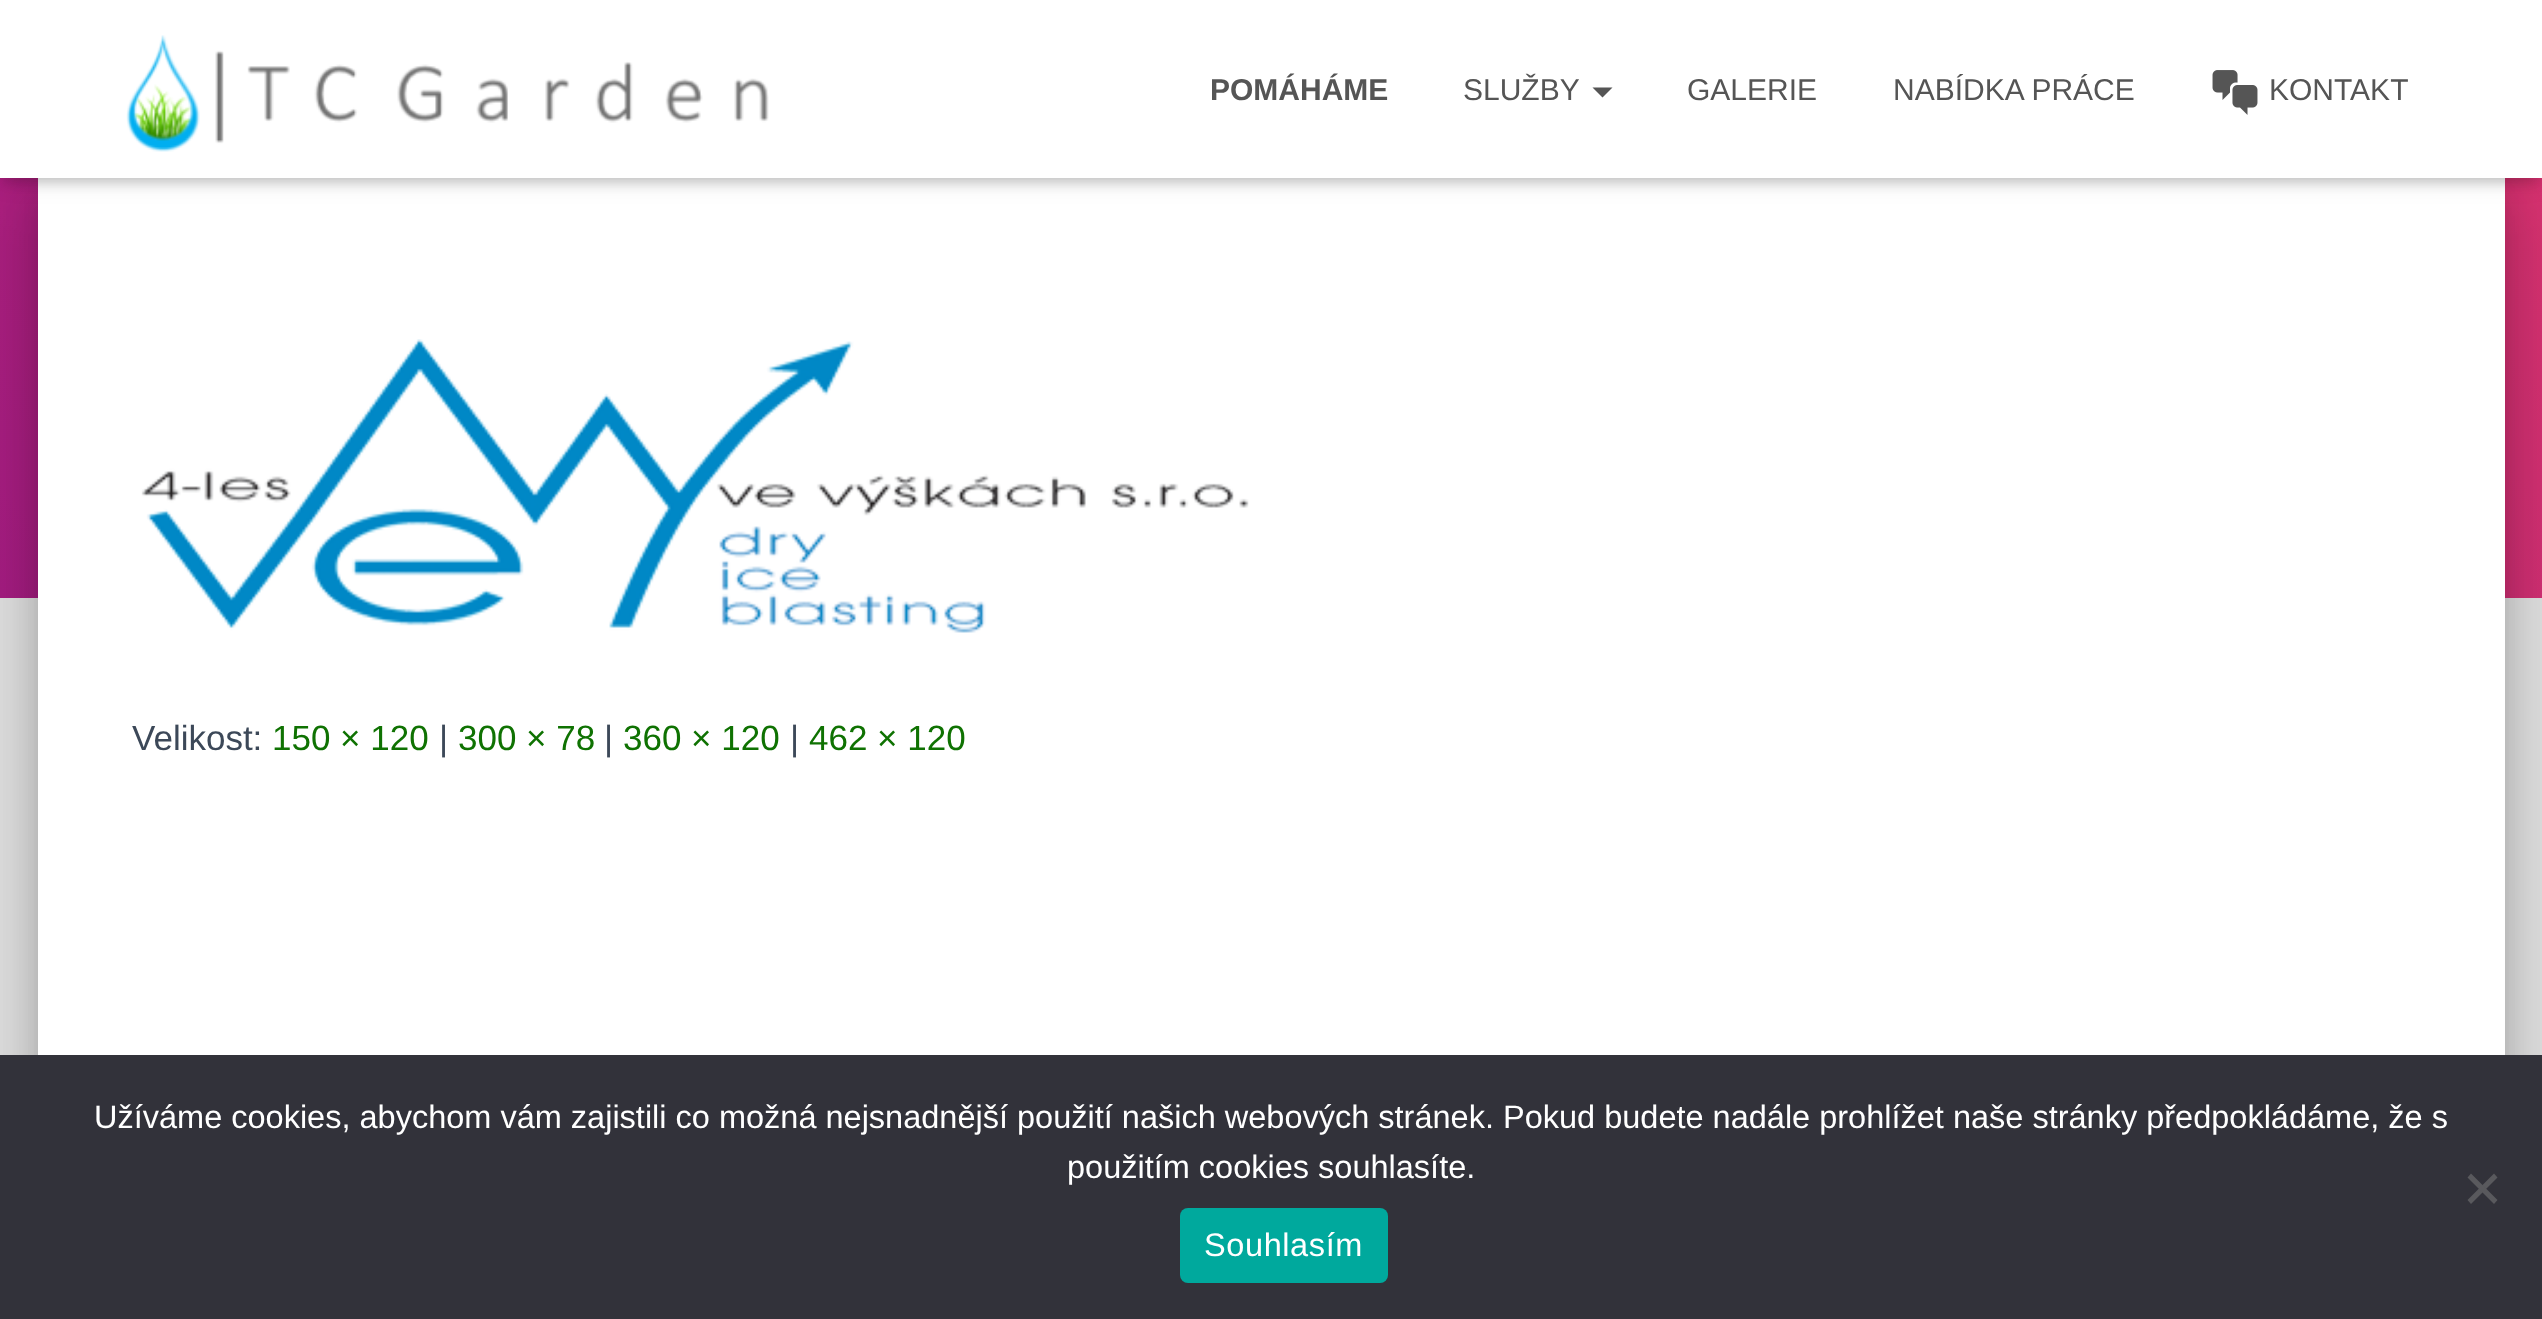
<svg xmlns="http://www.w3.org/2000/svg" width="2542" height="1319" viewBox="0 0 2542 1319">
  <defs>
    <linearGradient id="g1" gradientUnits="userSpaceOnUse" x1="343" y1="940" x2="2200" y2="-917"><stop offset="0" stop-color="rgb(168,29,132)"/><stop offset="1" stop-color="rgb(234,57,111)"/></linearGradient>
  </defs>
  <rect width="100%" height="100%" fill="rgb(229,229,229)"/>
  <rect x="0" y="178" width="2542" height="420" fill="url(#g1)"/>
  <rect x="50" y="193" width="2443" height="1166" rx="2.5" fill="rgba(0,0,0,0.2)" filter="blur(12.5px)"/>
  <rect x="25" y="163" width="2493" height="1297" rx="28" fill="rgba(0,0,0,0.12)" filter="blur(37.5px)"/>
  <rect x="33" y="195" width="2477" height="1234" rx="20" fill="rgba(0,0,0,0.14)" filter="blur(30px)"/>
  <rect x="38" y="178" width="2467" height="877" fill="rgb(255,255,255)"/>
  <rect x="5" y="15" width="2533" height="168" fill="rgba(0,0,0,0.1)" filter="blur(6px)"/>
  <rect x="0" y="3" width="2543" height="177" fill="rgba(0,0,0,0.12)" filter="blur(12.5px)"/>
  <rect x="15" y="18" width="2513" height="147" fill="rgba(0,0,0,0.42)" filter="blur(12.5px)"/>
  <rect x="0" y="0" width="2542" height="178" fill="rgb(255,255,255)"/>
  <image x="126" y="35" width="643" height="117" href="pic1.png"/>
  <text x="1210" y="100" font-family="Liberation Sans" font-size="30" font-weight="bold" fill="rgb(85,85,85)">POMÁHÁME</text>
  <text x="1463" y="100" font-family="Liberation Sans" font-size="30" fill="rgb(85,85,85)">SLUŽBY</text>
  <path d="M1592.5 87.5H1612.5L1602.5 97.5Z" fill="rgb(85,85,85)"/>
  <g font-family="Liberation Sans" font-size="30" fill="rgb(85,85,85)">
    <text x="1687" y="100">GALERIE</text>
    <text x="1893" y="100">NABÍDKA PRÁCE</text>
  </g>
  <image x="2212" y="70" width="46" height="45" href="pic2.png"/>
  <text x="2269" y="100" font-family="Liberation Sans" font-size="30" fill="rgb(85,85,85)">KONTAKT</text>
  <image x="141" y="339" width="1108" height="294" href="pic3.png"/>
  <text x="132" y="750" font-family="Liberation Sans" font-size="35" fill="rgb(60,72,88)">Velikost:</text>
  <text x="272" y="750" font-family="Liberation Sans" font-size="35" fill="rgb(15,114,2)">150 × 120</text>
  <text x="439" y="750" font-family="Liberation Sans" font-size="35" fill="rgb(60,72,88)">|</text>
  <text x="458" y="750" font-family="Liberation Sans" font-size="35" fill="rgb(15,114,2)">300 × 78</text>
  <text x="604" y="750" font-family="Liberation Sans" font-size="35" fill="rgb(60,72,88)">|</text>
  <text x="623" y="750" font-family="Liberation Sans" font-size="35" fill="rgb(15,114,2)">360 × 120</text>
  <text x="790" y="750" font-family="Liberation Sans" font-size="35" fill="rgb(60,72,88)">|</text>
  <text x="809" y="750" font-family="Liberation Sans" font-size="35" fill="rgb(15,114,2)">462 × 120</text>
  <rect x="0" y="1055" width="2542" height="264" fill="rgb(50,50,58)"/>
  <g font-family="Liberation Sans" font-size="32.5" fill="rgb(255,255,255)">
    <text x="94" y="1128">Užíváme cookies, abychom vám zajistili co možná nejsnadnější použití našich webových stránek. Pokud budete nadále prohlížet naše stránky předpokládáme, že s</text>
    <text x="1067" y="1178">použitím cookies souhlasíte.</text>
  </g>
  <path d="M2494 1173.5L2497.5 1177.5L2471 1204L2467.5 1200Z" fill="rgb(89,89,93)"/>
  <path d="M2467.5 1177.5L2471 1173.5L2497.5 1200L2494 1204Z" fill="rgb(89,89,93)"/>
  <rect x="1180" y="1208" width="208" height="75" rx="8" fill="rgb(0,169,157)"/>
  <text x="1204" y="1256" font-family="Liberation Sans" font-size="32.5" letter-spacing="0.6" fill="rgb(255,255,255)">Souhlasím</text>
</svg>
